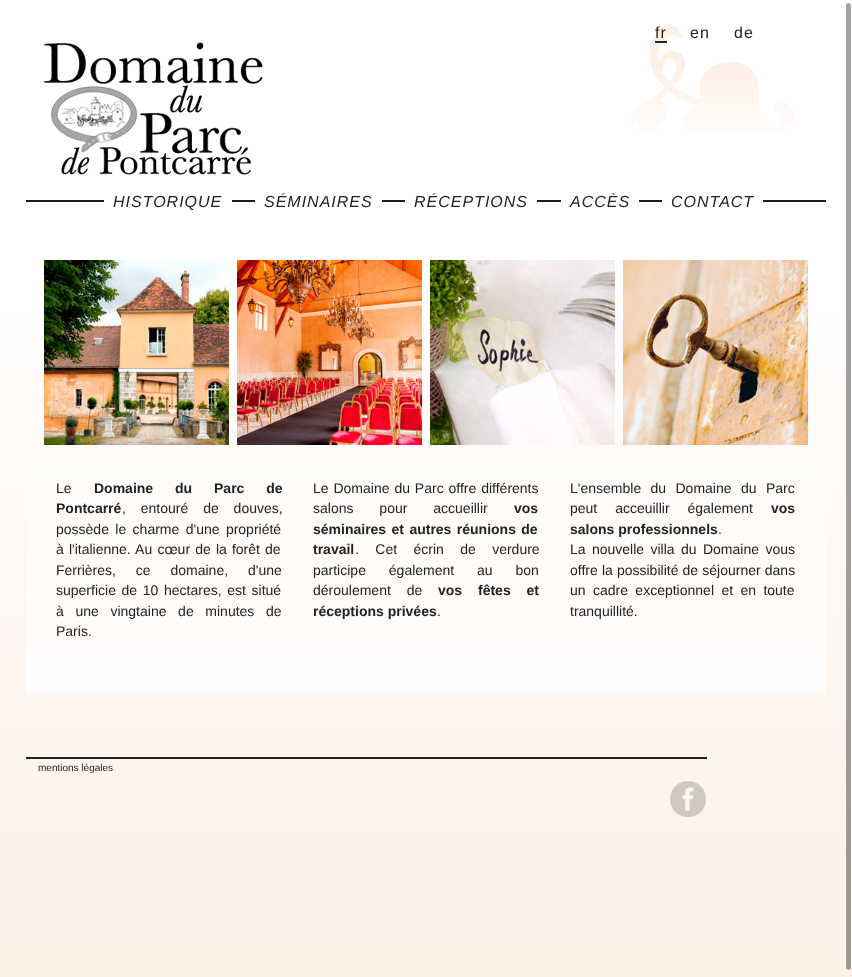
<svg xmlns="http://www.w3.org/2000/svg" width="852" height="977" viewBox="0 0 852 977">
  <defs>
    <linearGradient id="g1" gradientUnits="userSpaceOnUse" x1="426" y1="-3" x2="426" y2="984"><stop offset="0.25" stop-color="rgb(255,255,255)"/><stop offset="1" stop-color="rgb(253,240,229)"/></linearGradient>
    <linearGradient id="g2" gradientUnits="userSpaceOnUse" x1="426" y1="245" x2="426" y2="693"><stop offset="0" stop-color="rgb(255,255,255)" stop-opacity="0.05"/><stop offset="1" stop-color="rgb(255,255,255)" stop-opacity="0.75"/></linearGradient>
  </defs>
  <rect width="100%" height="100%" fill="rgb(255,255,255)"/>
  <rect x="0" y="315" width="852" height="662" fill="url(#g1)"/>
  <image x="631" y="25" width="163" height="105" href="pic1.png"/>
  <text x="655" y="38" font-family="Liberation Sans" font-size="16" letter-spacing="1" fill="rgb(34,34,34)">fr</text>
  <rect x="655" y="41" width="12" height="2" fill="rgb(34,34,34)"/>
  <g font-family="Liberation Sans" font-size="16" letter-spacing="1" fill="rgb(34,34,34)">
    <text x="690" y="38">en</text>
    <text x="734" y="38">de</text>
  </g>
  <image x="44" y="42" width="219" height="133" href="pic2.png"/>
  <rect x="26" y="200" width="800" height="2" fill="rgb(28,28,28)"/>
  <rect x="104" y="200" width="128" height="2" fill="rgb(255,255,255)"/>
  <text x="113" y="207" font-family="Liberation Sans" font-size="16" font-style="italic" letter-spacing="1" fill="rgb(34,34,34)">HISTORIQUE</text>
  <rect x="255" y="200" width="127" height="2" fill="rgb(255,255,255)"/>
  <text x="264" y="207" font-family="Liberation Sans" font-size="16" font-style="italic" letter-spacing="1" fill="rgb(34,34,34)">SÉMINAIRES</text>
  <rect x="405" y="200" width="132" height="2" fill="rgb(255,255,255)"/>
  <text x="414" y="207" font-family="Liberation Sans" font-size="16" font-style="italic" letter-spacing="1" fill="rgb(34,34,34)">RÉCEPTIONS</text>
  <rect x="561" y="200" width="78" height="2" fill="rgb(255,255,255)"/>
  <text x="570" y="207" font-family="Liberation Sans" font-size="16" font-style="italic" letter-spacing="1" fill="rgb(34,34,34)">ACCÈS</text>
  <rect x="662" y="200" width="101" height="2" fill="rgb(255,255,255)"/>
  <text x="671" y="207" font-family="Liberation Sans" font-size="16" font-style="italic" letter-spacing="1" fill="rgb(34,34,34)">CONTACT</text>
  <rect x="26" y="450" width="800" height="243" fill="url(#g2)"/>
  <image x="44" y="260" width="185" height="185" href="pic3.png"/>
  <image x="237" y="260" width="185" height="185" href="pic4.png"/>
  <image x="430" y="260" width="185" height="185" href="pic5.png"/>
  <image x="623" y="260" width="185" height="185" href="pic6.png"/>
  <text x="56" y="493" font-family="Liberation Sans" font-size="14" fill="rgb(34,34,34)">Le</text>
  <g font-family="Liberation Sans" font-size="14" font-weight="bold" fill="rgb(34,34,34)">
    <text x="94" y="493" word-spacing="18">Domaine du Parc de</text>
    <text x="56" y="513">Pontcarré</text>
  </g>
  <g font-family="Liberation Sans" font-size="14" fill="rgb(34,34,34)">
    <text x="122" y="513" word-spacing="11">, entouré de douves,</text>
    <text>
      <tspan x="56" y="534" word-spacing="2.5">possède le charme d'une propriété</tspan>
      <tspan x="56" y="554" word-spacing="1.25">à l'italienne. Au cœur de la forêt de</tspan>
      <tspan x="56" y="575" word-spacing="16">Ferrières, ce domaine, d'une</tspan>
      <tspan x="56" y="595" word-spacing="1.75">superficie de 10 hectares, est situé</tspan>
      <tspan x="56" y="616" word-spacing="7.75">à une vingtaine de minutes de</tspan>
      <tspan x="56" y="636">Paris.</tspan>
    </text>
    <text>
      <tspan x="313" y="493" word-spacing="1">Le Domaine du Parc offre différents</tspan>
      <tspan x="313" y="513" word-spacing="22">salons pour accueillir</tspan>
    </text>
  </g>
  <g font-family="Liberation Sans" font-size="14" font-weight="bold" fill="rgb(34,34,34)">
    <text x="514" y="513">vos</text>
    <text>
      <tspan x="313" y="534" word-spacing="1.5">séminaires et autres réunions de</tspan>
      <tspan x="313" y="554">travail</tspan>
    </text>
  </g>
  <g font-family="Liberation Sans" font-size="14" fill="rgb(34,34,34)">
    <text x="355" y="554" word-spacing="12.5">. Cet écrin de verdure</text>
    <text>
      <tspan x="313" y="575" word-spacing="19">participe également au bon</tspan>
      <tspan x="313" y="595" word-spacing="12">déroulement de</tspan>
    </text>
  </g>
  <g font-family="Liberation Sans" font-size="14" font-weight="bold" fill="rgb(34,34,34)">
    <text x="438" y="595" word-spacing="12">vos fêtes et</text>
    <text x="313" y="616">réceptions privées</text>
  </g>
  <g font-family="Liberation Sans" font-size="14" fill="rgb(34,34,34)">
    <text x="437" y="616">.</text>
    <text>
      <tspan x="570" y="493" word-spacing="5.5">L'ensemble du Domaine du Parc</tspan>
      <tspan x="570" y="513" word-spacing="14">peut acceuillir également</tspan>
    </text>
  </g>
  <g font-family="Liberation Sans" font-size="14" font-weight="bold" fill="rgb(34,34,34)">
    <text x="771" y="513">vos</text>
    <text x="570" y="534">salons professionnels</text>
  </g>
  <g font-family="Liberation Sans" font-size="14" fill="rgb(34,34,34)">
    <text x="718" y="534">.</text>
    <text>
      <tspan x="570" y="554" word-spacing="2.5">La nouvelle villa du Domaine vous</tspan>
      <tspan x="570" y="575" word-spacing="0.25">offre la possibilité de séjourner dans</tspan>
      <tspan x="570" y="595" word-spacing="3.5">un cadre exceptionnel et en toute</tspan>
      <tspan x="570" y="616">tranquillité.</tspan>
    </text>
  </g>
  <rect x="26" y="757" width="681" height="2" fill="rgb(34,34,34)"/>
  <text x="38" y="771" font-family="Liberation Sans" font-size="10" fill="rgb(34,34,34)">mentions légales</text>
  <image x="670" y="781" width="36" height="36" href="pic7.png"/>
  <rect x="846" y="3" width="5" height="967" rx="2.5" fill="rgba(66,66,66,0.5)"/>
  <rect x="845.5" y="2.5" width="6" height="968" rx="3" fill="none" stroke="rgba(255,255,255,0.5)"/>
</svg>
